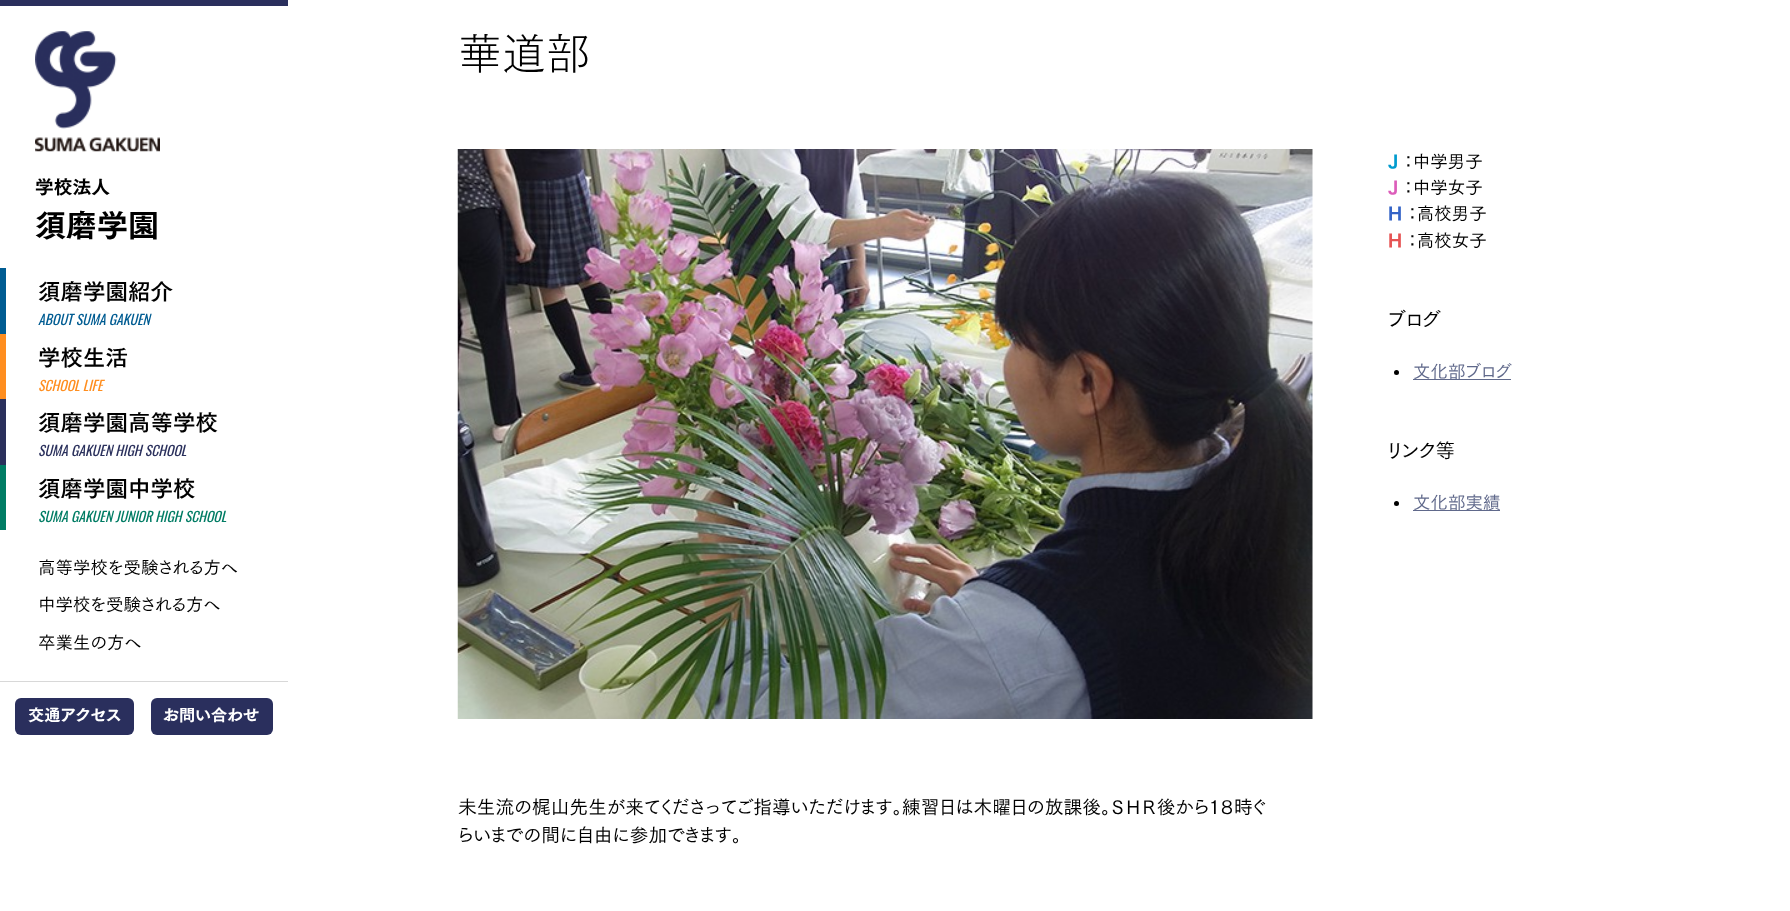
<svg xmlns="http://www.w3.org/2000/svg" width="1790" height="911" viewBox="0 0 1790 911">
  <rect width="100%" height="100%" fill="rgb(255,255,255)"/>
  <rect x="0" y="0" width="288" height="6" fill="rgb(42,47,93)"/>
  <image x="35" y="31" width="125" height="121" href="pic1.png"/>
  <text x="35" y="194" font-family="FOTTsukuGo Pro" font-size="18.75" font-weight="800" fill="rgb(0,0,0)">学校法人</text>
  <text x="35" y="237" font-family="FOTTsukuGo Pro" font-size="31" font-weight="800" fill="rgb(0,0,0)">須磨学園</text>
  <rect x="0" y="268" width="6" height="66" fill="rgb(0,92,146)"/>
  <text x="38" y="300" font-family="FOTTsukuGo Pro" font-size="22.5" font-weight="bold" fill="rgb(0,0,0)">須磨学園紹介</text>
  <text x="38" y="325" font-family="Oswald" font-size="13.75" font-style="italic" fill="rgb(0,92,146)">ABOUT SUMA GAKUEN</text>
  <rect x="0" y="334" width="6" height="65" fill="rgb(255,142,31)"/>
  <text x="38" y="366" font-family="FOTTsukuGo Pro" font-size="22.5" font-weight="bold" fill="rgb(0,0,0)">学校生活</text>
  <text x="38" y="391" font-family="Oswald" font-size="13.75" font-style="italic" fill="rgb(255,142,31)">SCHOOL LIFE</text>
  <rect x="0" y="399" width="6" height="66" fill="rgb(42,48,92)"/>
  <text x="38" y="431" font-family="FOTTsukuGo Pro" font-size="22.5" font-weight="bold" fill="rgb(0,0,0)">須磨学園高等学校</text>
  <text x="38" y="456" font-family="Oswald" font-size="13.75" font-style="italic" fill="rgb(42,48,92)">SUMA GAKUEN HIGH SCHOOL</text>
  <rect x="0" y="465" width="6" height="65" fill="rgb(0,124,100)"/>
  <text x="38" y="497" font-family="FOTTsukuGo Pro" font-size="22.5" font-weight="bold" fill="rgb(0,0,0)">須磨学園中学校</text>
  <text x="38" y="522" font-family="Oswald" font-size="13.75" font-style="italic" fill="rgb(0,124,100)">SUMA GAKUEN JUNIOR HIGH SCHOOL</text>
  <g font-family="'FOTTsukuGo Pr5'" font-size="17.5" font-weight="500" fill="rgb(0,0,0)">
    <text x="38" y="574">高等学校を受験される方へ</text>
    <text x="38" y="611">中学校を受験される方へ</text>
    <text x="38" y="649">卒業生の方へ</text>
  </g>
  <rect x="0" y="681" width="288" height="1" fill="rgb(216,216,216)"/>
  <rect x="15" y="698" width="119" height="37" rx="6" fill="rgb(42,47,93)"/>
  <text x="28" y="721" font-family="FOTTsukuGo Pro" font-size="16.25" font-weight="800" fill="rgb(255,255,255)">交通アクセス</text>
  <rect x="151" y="698" width="122" height="37" rx="6" fill="rgb(42,47,93)"/>
  <text x="163" y="721" font-family="FOTTsukuGo Pro" font-size="16.25" font-weight="800" fill="rgb(255,255,255)">お問い合わせ</text>
  <text x="458" y="70" font-family="'FOTTsukuGo Pr5'" font-size="44" font-weight="300" fill="rgb(0,0,0)">華道部</text>
  <text x="1388" y="168" font-family="FOTTsukuGo Pro" font-size="17.5" font-weight="800" fill="rgb(1,155,206)">J</text>
  <text x="1404" y="168" font-family="'FOTTsukuGo Pr5'" font-size="17.5" font-weight="500" fill="rgb(0,0,0)">：中学男子</text>
  <text x="1388" y="194" font-family="FOTTsukuGo Pro" font-size="17.5" font-weight="800" fill="rgb(220,93,186)">J</text>
  <text x="1404" y="194" font-family="'FOTTsukuGo Pr5'" font-size="17.5" font-weight="500" fill="rgb(0,0,0)">：中学女子</text>
  <text x="1388" y="220" font-family="FOTTsukuGo Pro" font-size="17.5" font-weight="800" fill="rgb(52,100,199)">H</text>
  <text x="1408" y="220" font-family="'FOTTsukuGo Pr5'" font-size="17.5" font-weight="500" fill="rgb(0,0,0)">：高校男子</text>
  <text x="1388" y="247" font-family="FOTTsukuGo Pro" font-size="17.5" font-weight="800" fill="rgb(230,84,84)">H</text>
  <text x="1408" y="247" font-family="'FOTTsukuGo Pr5'" font-size="17.5" font-weight="500" fill="rgb(0,0,0)">：高校女子</text>
  <text x="1388" y="327" font-family="'FOTTsukuGo Pr5'" font-size="20" font-weight="500" fill="rgb(0,0,0)">ブログ</text>
  <circle cx="1396.5" cy="372.5" r="2.5" fill="rgb(0,0,0)"/>
  <rect x="1413" y="379" width="98" height="1" fill="rgb(96,105,139)"/>
  <text x="1413" y="378" font-family="'FOTTsukuGo Pr5'" font-size="17.5" font-weight="500" fill="rgb(96,105,139)">文化部ブログ</text>
  <text x="1388" y="458" font-family="'FOTTsukuGo Pr5'" font-size="20" font-weight="500" fill="rgb(0,0,0)">リンク等</text>
  <circle cx="1396.5" cy="503.5" r="2.5" fill="rgb(0,0,0)"/>
  <rect x="1413" y="510" width="87" height="1" fill="rgb(96,105,139)"/>
  <text x="1413" y="509" font-family="'FOTTsukuGo Pr5'" font-size="17.5" font-weight="500" fill="rgb(96,105,139)">文化部実績</text>
  <image x="457" y="149" width="856" height="570" href="pic2.png"/>
  <g font-family="'FOTTsukuGo Pr5'" font-size="18.75" font-weight="500" fill="rgb(0,0,0)">
    <text>
      <tspan x="458" y="814">未生流の梶山先生が来てくださってご指導いただけます。練習日は木曜日の放課後。ＳＨＲ後から１８時ぐ</tspan>
      <tspan x="458" y="842">らいまでの間に自由に参加できます。</tspan>
    </text>
  </g>
</svg>
